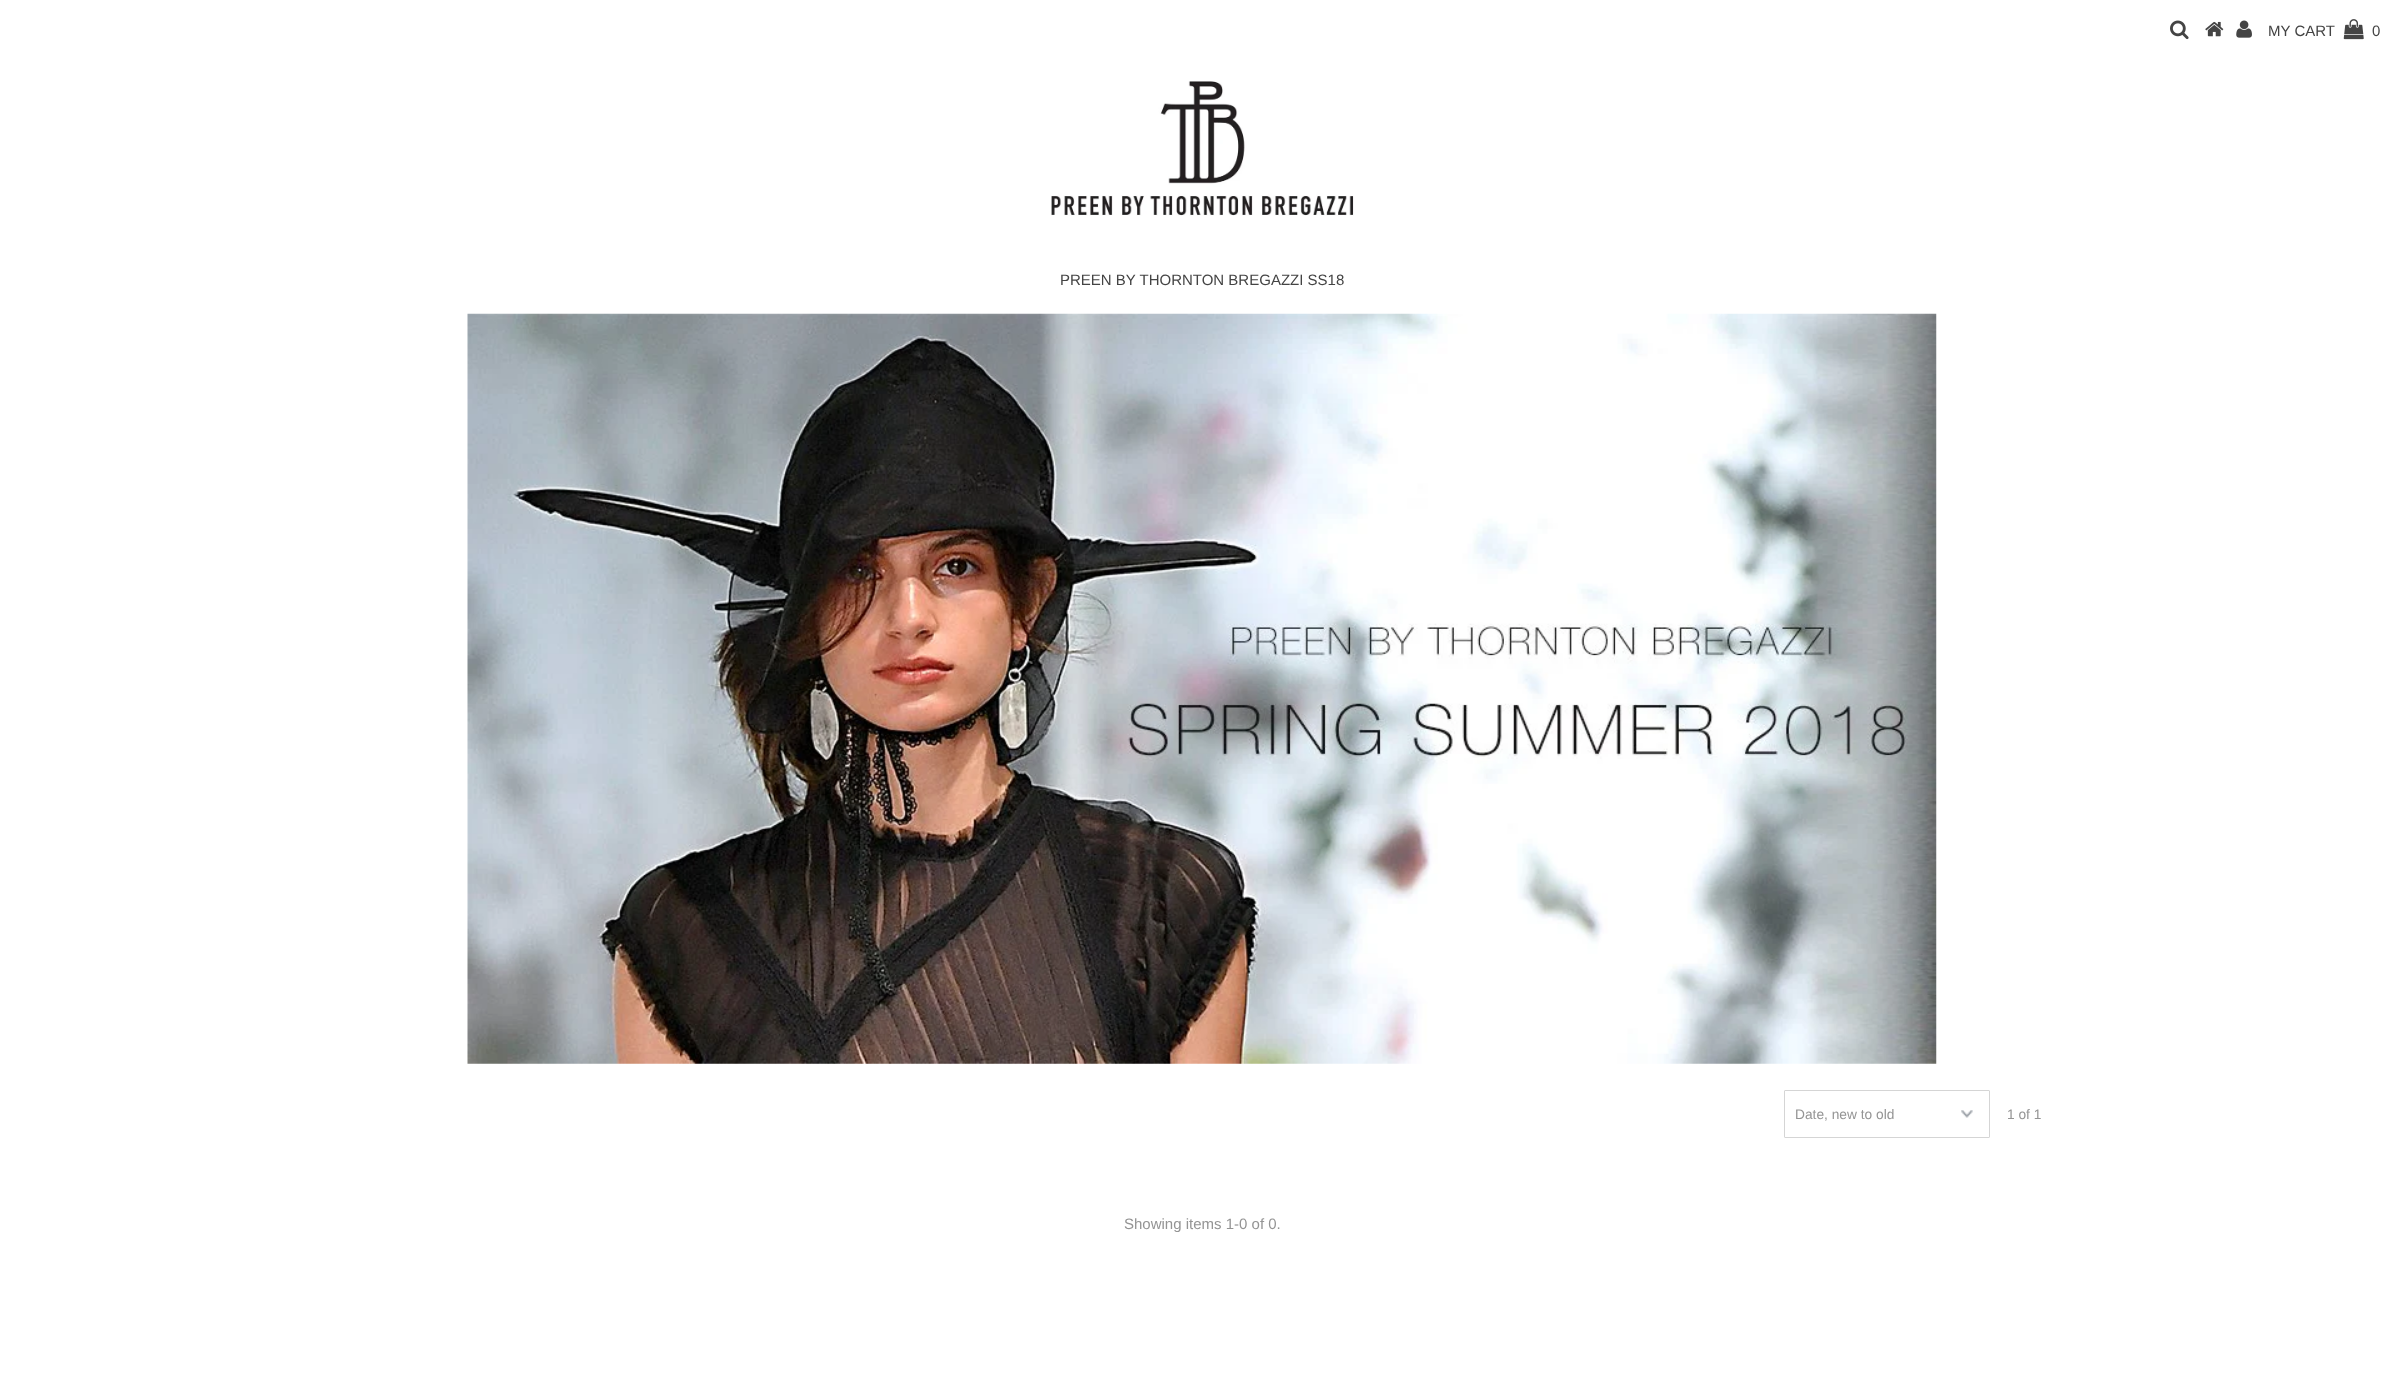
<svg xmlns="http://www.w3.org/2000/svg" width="2404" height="1394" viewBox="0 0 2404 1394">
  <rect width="100%" height="100%" fill="rgb(255,255,255)"/>
  <image x="2170" y="20" width="19" height="20" href="pic1.png"/>
  <image x="2205" y="21" width="19" height="16" href="pic2.png"/>
  <image x="2236" y="20" width="16" height="18" href="pic3.png"/>
  <text x="2268" y="36" font-family="Liberation Sans" font-size="15" fill="rgb(68,68,68)">MY CART</text>
  <image x="2343" y="19" width="21" height="21" href="pic4.png"/>
  <text x="2372" y="36" font-family="Liberation Sans" font-size="15" fill="rgb(68,68,68)">0</text>
  <image x="1051" y="81" width="303" height="135" href="pic5.png"/>
  <text x="1060" y="285" font-family="Liberation Sans" font-size="15" fill="rgb(68,68,68)">PREEN BY THORNTON BREGAZZI SS18</text>
  <image x="467" y="313" width="1470" height="751" href="pic6.png"/>
  <image x="1961" y="1110" width="12" height="8" href="pic7.png"/>
  <rect x="1784.5" y="1090.5" width="205" height="47" rx="0.5" fill="none" stroke="rgb(213,213,213)"/>
  <g font-family="Liberation Sans" font-size="13.75" fill="rgb(148,148,148)">
    <text x="1795" y="1119">Date, new to old</text>
    <text x="2007" y="1119">1 of 1</text>
  </g>
  <text x="1124" y="1229" font-family="Liberation Sans" font-size="15" fill="rgb(148,148,148)">Showing items 1-0 of 0.</text>
</svg>
